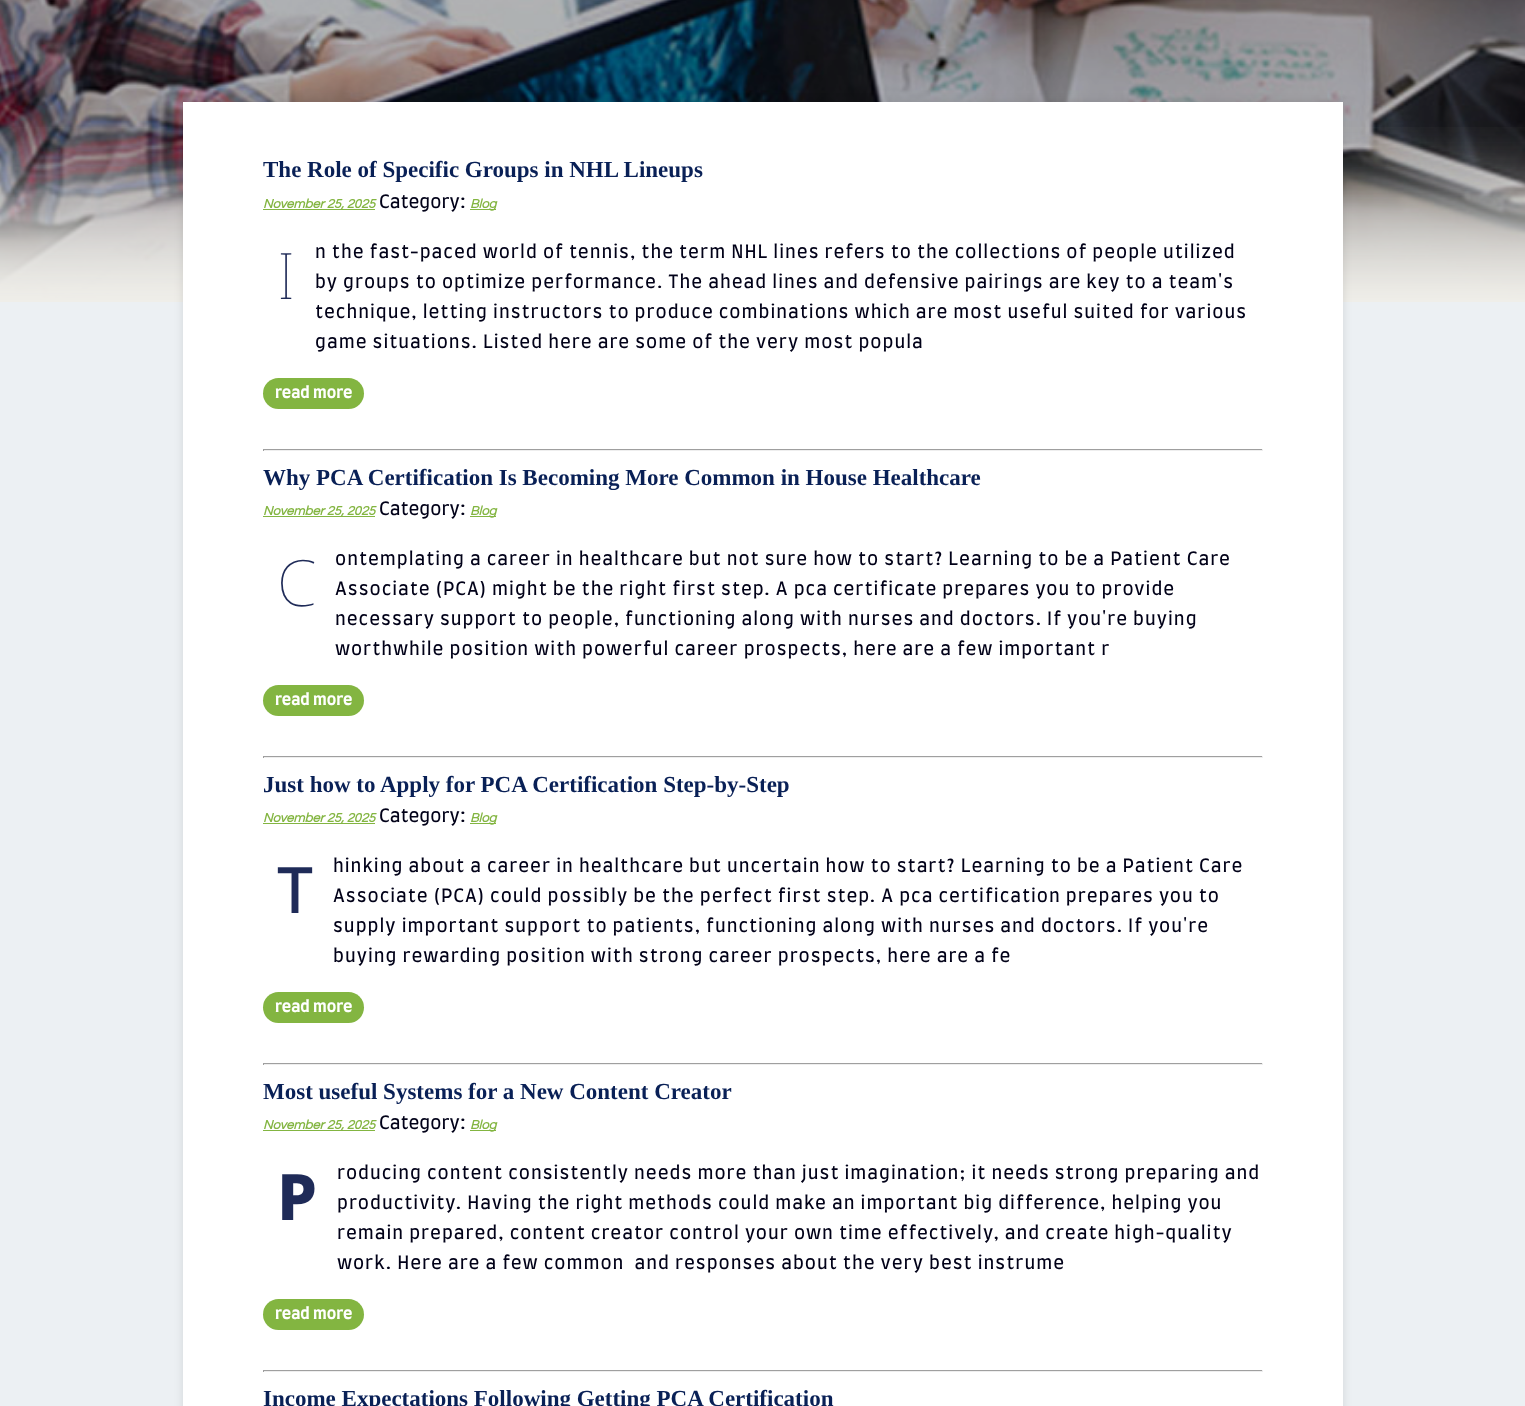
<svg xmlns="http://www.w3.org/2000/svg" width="1525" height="1406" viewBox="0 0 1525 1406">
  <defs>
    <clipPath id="clip1"><rect x="263" y="152" width="1000" height="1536"/></clipPath>
  </defs>
  <rect width="100%" height="100%" fill="rgb(236,240,243)"/>
  <image x="0" y="0" width="1525" height="300" href="pic1.png"/>
  <image x="0" y="127" width="1525" height="175" href="pic2.png"/>
  <rect x="183" y="102" width="1160" height="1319" fill="rgba(0,0,0,0.1)" filter="blur(5px)"/>
  <rect x="183" y="102" width="1160" height="1304" fill="rgb(255,255,255)"/>
  <g clip-path="url(#clip1)">
    <text x="263" y="177" font-family="Liberation Serif" font-size="23" font-weight="bold" fill="rgb(9,32,86)">The Role of Specific Groups in NHL Lineups</text>
  </g>
  <rect x="263" y="209" width="112" height="1" fill="rgb(131,181,65)"/>
  <text x="263" y="208" font-family="Questrial" font-size="13" font-weight="bold" font-style="italic" fill="rgb(131,181,65)">November 25, 2025</text>
  <text x="379" y="208" font-family="Farro" font-size="18" fill="rgb(1,1,24)">Category:</text>
  <rect x="470" y="209" width="26" height="1" fill="rgb(131,181,65)"/>
  <text x="470" y="208" font-family="Questrial" font-size="13" font-weight="bold" font-style="italic" fill="rgb(131,181,65)">Blog</text>
  <text x="277" y="299" font-family="Noto Sans" font-size="64" font-weight="100" letter-spacing="1" fill="rgb(31,43,88)">I</text>
  <g font-family="Farro" font-size="18" letter-spacing="1" fill="rgb(1,1,24)">
    <text>
      <tspan x="315" y="258">n the fast-paced world of tennis, the term NHL lines refers to the collections of people utilized</tspan>
      <tspan x="315" y="288">by groups to optimize performance. The ahead lines and defensive pairings are key to a team's</tspan>
      <tspan x="315" y="318">technique, letting instructors to produce combinations which are most useful suited for various</tspan>
      <tspan x="315" y="348">game situations. Listed here are some of the very most popula</tspan>
    </text>
  </g>
  <rect x="263" y="378" width="101" height="31" rx="15.5" fill="rgb(131,181,65)"/>
  <text x="275" y="398" font-family="Farro" font-size="16" font-weight="bold" fill="rgb(255,255,255)">read more</text>
  <rect x="263" y="449" width="1000" height="1" fill="rgb(159,159,159)"/>
  <rect x="1262" y="449" width="1" height="2" fill="rgb(238,238,238)"/>
  <rect x="263" y="450" width="1000" height="1" fill="rgb(238,238,238)"/>
  <rect x="263" y="449" width="1" height="2" fill="rgb(159,159,159)"/>
  <text x="263" y="485" font-family="Liberation Serif" font-size="23" font-weight="bold" fill="rgb(9,32,86)">Why PCA Certification Is Becoming More Common in House Healthcare</text>
  <rect x="263" y="516" width="112" height="1" fill="rgb(131,181,65)"/>
  <text x="263" y="515" font-family="Questrial" font-size="13" font-weight="bold" font-style="italic" fill="rgb(131,181,65)">November 25, 2025</text>
  <text x="379" y="515" font-family="Farro" font-size="18" fill="rgb(1,1,24)">Category:</text>
  <rect x="470" y="516" width="26" height="1" fill="rgb(131,181,65)"/>
  <text x="470" y="515" font-family="Questrial" font-size="13" font-weight="bold" font-style="italic" fill="rgb(131,181,65)">Blog</text>
  <text x="277" y="606" font-family="Noto Sans" font-size="64" font-weight="100" letter-spacing="1" fill="rgb(31,43,88)">C</text>
  <g font-family="Farro" font-size="18" letter-spacing="1" fill="rgb(1,1,24)">
    <text>
      <tspan x="335" y="565">ontemplating a career in healthcare but not sure how to start? Learning to be a Patient Care</tspan>
      <tspan x="335" y="595">Associate (PCA) might be the right first step. A pca certificate prepares you to provide</tspan>
      <tspan x="335" y="625">necessary support to people, functioning along with nurses and doctors. If you're buying</tspan>
      <tspan x="335" y="655">worthwhile position with powerful career prospects, here are a few important r</tspan>
    </text>
  </g>
  <rect x="263" y="685" width="101" height="31" rx="15.5" fill="rgb(131,181,65)"/>
  <text x="275" y="705" font-family="Farro" font-size="16" font-weight="bold" fill="rgb(255,255,255)">read more</text>
  <rect x="263" y="756" width="1000" height="1" fill="rgb(159,159,159)"/>
  <rect x="1262" y="756" width="1" height="2" fill="rgb(238,238,238)"/>
  <rect x="263" y="757" width="1000" height="1" fill="rgb(238,238,238)"/>
  <rect x="263" y="756" width="1" height="2" fill="rgb(159,159,159)"/>
  <text x="263" y="792" font-family="Liberation Serif" font-size="23" font-weight="bold" fill="rgb(9,32,86)">Just how to Apply for PCA Certification Step-by-Step</text>
  <rect x="263" y="823" width="112" height="1" fill="rgb(131,181,65)"/>
  <text x="263" y="822" font-family="Questrial" font-size="13" font-weight="bold" font-style="italic" fill="rgb(131,181,65)">November 25, 2025</text>
  <text x="379" y="822" font-family="Farro" font-size="18" fill="rgb(1,1,24)">Category:</text>
  <rect x="470" y="823" width="26" height="1" fill="rgb(131,181,65)"/>
  <text x="470" y="822" font-family="Questrial" font-size="13" font-weight="bold" font-style="italic" fill="rgb(131,181,65)">Blog</text>
  <text x="277" y="913" font-family="Noto Sans" font-size="64" font-weight="500" letter-spacing="1" fill="rgb(31,43,88)">T</text>
  <g font-family="Farro" font-size="18" letter-spacing="1" fill="rgb(1,1,24)">
    <text>
      <tspan x="333" y="872">hinking about a career in healthcare but uncertain how to start? Learning to be a Patient Care</tspan>
      <tspan x="333" y="902">Associate (PCA) could possibly be the perfect first step. A pca certification prepares you to</tspan>
      <tspan x="333" y="932">supply important support to patients, functioning along with nurses and doctors. If you're</tspan>
      <tspan x="333" y="962">buying rewarding position with strong career prospects, here are a fe</tspan>
    </text>
  </g>
  <rect x="263" y="992" width="101" height="31" rx="15.5" fill="rgb(131,181,65)"/>
  <text x="275" y="1012" font-family="Farro" font-size="16" font-weight="bold" fill="rgb(255,255,255)">read more</text>
  <rect x="263" y="1063" width="1000" height="1" fill="rgb(159,159,159)"/>
  <rect x="1262" y="1063" width="1" height="2" fill="rgb(238,238,238)"/>
  <rect x="263" y="1064" width="1000" height="1" fill="rgb(238,238,238)"/>
  <rect x="263" y="1063" width="1" height="2" fill="rgb(159,159,159)"/>
  <text x="263" y="1099" font-family="Liberation Serif" font-size="23" font-weight="bold" fill="rgb(9,32,86)">Most useful Systems for a New Content Creator</text>
  <rect x="263" y="1130" width="112" height="1" fill="rgb(131,181,65)"/>
  <text x="263" y="1129" font-family="Questrial" font-size="13" font-weight="bold" font-style="italic" fill="rgb(131,181,65)">November 25, 2025</text>
  <text x="379" y="1129" font-family="Farro" font-size="18" fill="rgb(1,1,24)">Category:</text>
  <rect x="470" y="1130" width="26" height="1" fill="rgb(131,181,65)"/>
  <text x="470" y="1129" font-family="Questrial" font-size="13" font-weight="bold" font-style="italic" fill="rgb(131,181,65)">Blog</text>
  <text x="277" y="1220" font-family="Noto Sans" font-size="64" font-weight="800" letter-spacing="1" fill="rgb(31,43,88)">P</text>
  <g font-family="Farro" font-size="18" letter-spacing="1" fill="rgb(1,1,24)">
    <text xml:space="preserve"><tspan x="337" y="1179">roducing content consistently needs more than just imagination; it needs strong preparing and</tspan><tspan x="337" y="1209">productivity. Having the right methods could make an important big difference, helping you</tspan><tspan x="337" y="1239">remain prepared, content creator control your own time effectively, and create high-quality</tspan><tspan x="337" y="1269">work. Here are a few common  and responses about the very best instrume</tspan></text>
  </g>
  <rect x="263" y="1299" width="101" height="31" rx="15.5" fill="rgb(131,181,65)"/>
  <text x="275" y="1319" font-family="Farro" font-size="16" font-weight="bold" fill="rgb(255,255,255)">read more</text>
  <rect x="263" y="1370" width="1000" height="1" fill="rgb(159,159,159)"/>
  <rect x="1262" y="1370" width="1" height="2" fill="rgb(238,238,238)"/>
  <rect x="263" y="1371" width="1000" height="1" fill="rgb(238,238,238)"/>
  <rect x="263" y="1370" width="1" height="2" fill="rgb(159,159,159)"/>
  <text x="263" y="1406" font-family="Liberation Serif" font-size="23" font-weight="bold" fill="rgb(9,32,86)">Income Expectations Following Getting PCA Certification</text>
</svg>
